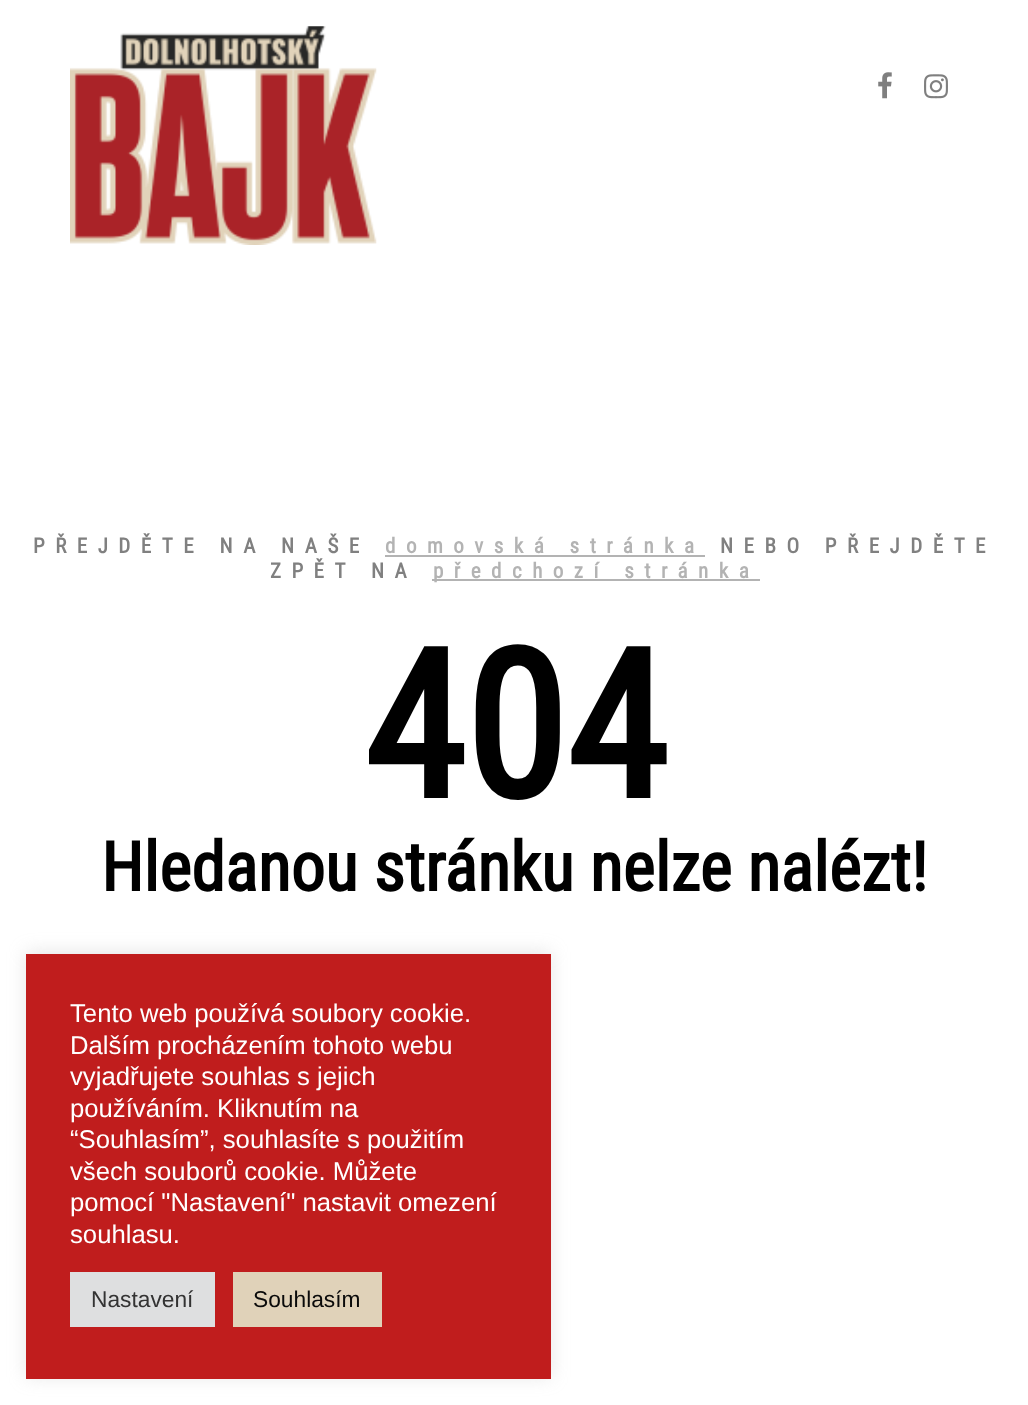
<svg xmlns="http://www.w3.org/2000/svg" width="1028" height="1405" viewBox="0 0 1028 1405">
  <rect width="100%" height="100%" fill="rgb(255,255,255)"/>
  <image x="70" y="26" width="307" height="219" href="pic1.png"/>
  <image x="878" y="72" width="14" height="27" href="pic2.png"/>
  <image x="924" y="74" width="24" height="25" href="pic3.png"/>
  <text x="33" y="553" font-family="Roboto Condensed" font-size="21" font-weight="bold" letter-spacing="10.5" fill="rgb(128,128,128)">PŘEJDĚTE NA NAŠE</text>
  <text x="385" y="553" font-family="Roboto Condensed" font-size="21" font-weight="bold" letter-spacing="10.5" fill="rgb(179,179,179)">domovská stránka</text>
  <rect x="385" y="555" width="320" height="2" fill="rgb(179,179,179)"/>
  <g font-family="Roboto Condensed" font-size="21" font-weight="bold" letter-spacing="10.5" fill="rgb(128,128,128)">
    <text x="720" y="553">NEBO PŘEJDĚTE</text>
    <text x="270" y="578">ZPĚT NA</text>
  </g>
  <rect x="432" y="579" width="328" height="2" fill="rgb(179,179,179)"/>
  <text x="433" y="578" font-family="Roboto Condensed" font-size="21" font-weight="bold" letter-spacing="10.5" fill="rgb(179,179,179)">předchozí stránka</text>
  <text x="363" y="798" font-family="Roboto Condensed" font-size="205" font-weight="bold" fill="rgb(0,0,0)">404</text>
  <text x="101" y="891" font-family="Roboto Condensed" font-size="68.25" font-weight="bold" fill="rgb(0,0,0)">Hledanou stránku nelze nalézt!</text>
  <rect x="26" y="952" width="525" height="425" fill="rgba(172,171,171,0.3)" filter="blur(9px)"/>
  <rect x="26" y="954" width="525" height="425" fill="rgb(192,29,29)"/>
  <g font-family="Liberation Sans" font-size="25.7" fill="rgb(255,255,255)">
    <text>
      <tspan x="70" y="1022">Tento web používá soubory cookie.</tspan>
      <tspan x="70" y="1054">Dalším procházením tohoto webu</tspan>
      <tspan x="70" y="1085">vyjadřujete souhlas s jejich</tspan>
      <tspan x="70" y="1117">používáním. Kliknutím na</tspan>
      <tspan x="70" y="1148">“Souhlasím”, souhlasíte s použitím</tspan>
      <tspan x="70" y="1180">všech souborů cookie. Můžete</tspan>
      <tspan x="70" y="1211">pomocí "Nastavení" nastavit omezení</tspan>
      <tspan x="70" y="1243">souhlasu.</tspan>
    </text>
  </g>
  <rect x="70" y="1272" width="145" height="55" fill="rgb(222,223,224)"/>
  <text x="91" y="1307" font-family="Liberation Sans" font-size="22.75" fill="rgb(51,51,51)">Nastavení</text>
  <rect x="233" y="1272" width="149" height="55" fill="rgb(224,210,185)"/>
  <text x="253" y="1307" font-family="Liberation Sans" font-size="22.75" fill="rgb(10,10,10)">Souhlasím</text>
</svg>
